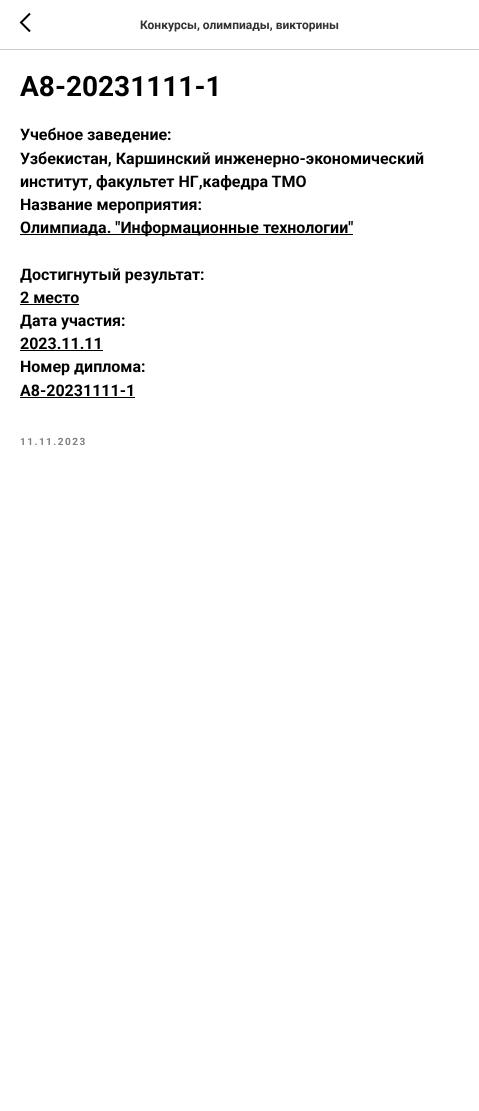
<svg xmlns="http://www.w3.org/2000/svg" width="479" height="1111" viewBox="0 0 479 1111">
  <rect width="100%" height="100%" fill="rgb(255,255,255)"/>
  <rect x="0" y="49" width="479" height="1" fill="rgb(204,204,204)"/>
  <path d="M30 31.5L21 22.5L30 13.5" fill="none" stroke="rgb(0,0,0)" stroke-width="2"/>
  <text x="140" y="29" font-family="Roboto" font-size="12" font-weight="bold" fill="rgb(51,51,51)">Конкурсы, олимпиады, викторины</text>
  <text x="20" y="96" font-family="Roboto" font-size="28" font-weight="bold" fill="rgb(0,0,0)">А8-20231111-1</text>
  <g font-family="Roboto" font-size="16" font-weight="bold" fill="rgb(0,0,0)">
    <text>
      <tspan x="20" y="140">Учебное заведение:</tspan>
      <tspan x="20" y="164">Узбекистан, Каршинский инженерно-экономический</tspan>
      <tspan x="20" y="187">институт, факультет НГ,кафедра ТМО</tspan>
      <tspan x="20" y="210">Название мероприятия:</tspan>
    </text>
  </g>
  <rect x="20" y="234" width="333" height="1" fill="rgb(0,0,0)"/>
  <g font-family="Roboto" font-size="16" font-weight="bold" fill="rgb(0,0,0)">
    <text x="20" y="233">Олимпиада. "Информационные технологии"</text>
    <text>
      <tspan x="20" y="280">Достигнутый результат:</tspan>
      <tspan x="20" y="303">2 место</tspan>
    </text>
  </g>
  <rect x="20" y="304" width="59" height="1" fill="rgb(0,0,0)"/>
  <g font-family="Roboto" font-size="16" font-weight="bold" fill="rgb(0,0,0)">
    <text>
      <tspan x="20" y="326">Дата участия:</tspan>
      <tspan x="20" y="349">2023.11.11</tspan>
    </text>
  </g>
  <rect x="20" y="350" width="83" height="1" fill="rgb(0,0,0)"/>
  <g font-family="Roboto" font-size="16" font-weight="bold" fill="rgb(0,0,0)">
    <text>
      <tspan x="20" y="372">Номер диплома:</tspan>
      <tspan x="20" y="396">А8-20231111-1</tspan>
    </text>
  </g>
  <rect x="20" y="397" width="115" height="1" fill="rgb(0,0,0)"/>
  <text x="20" y="445" font-family="Roboto" font-size="10" font-weight="bold" letter-spacing="1.5" fill="rgb(128,128,128)">11.11.2023</text>
</svg>
